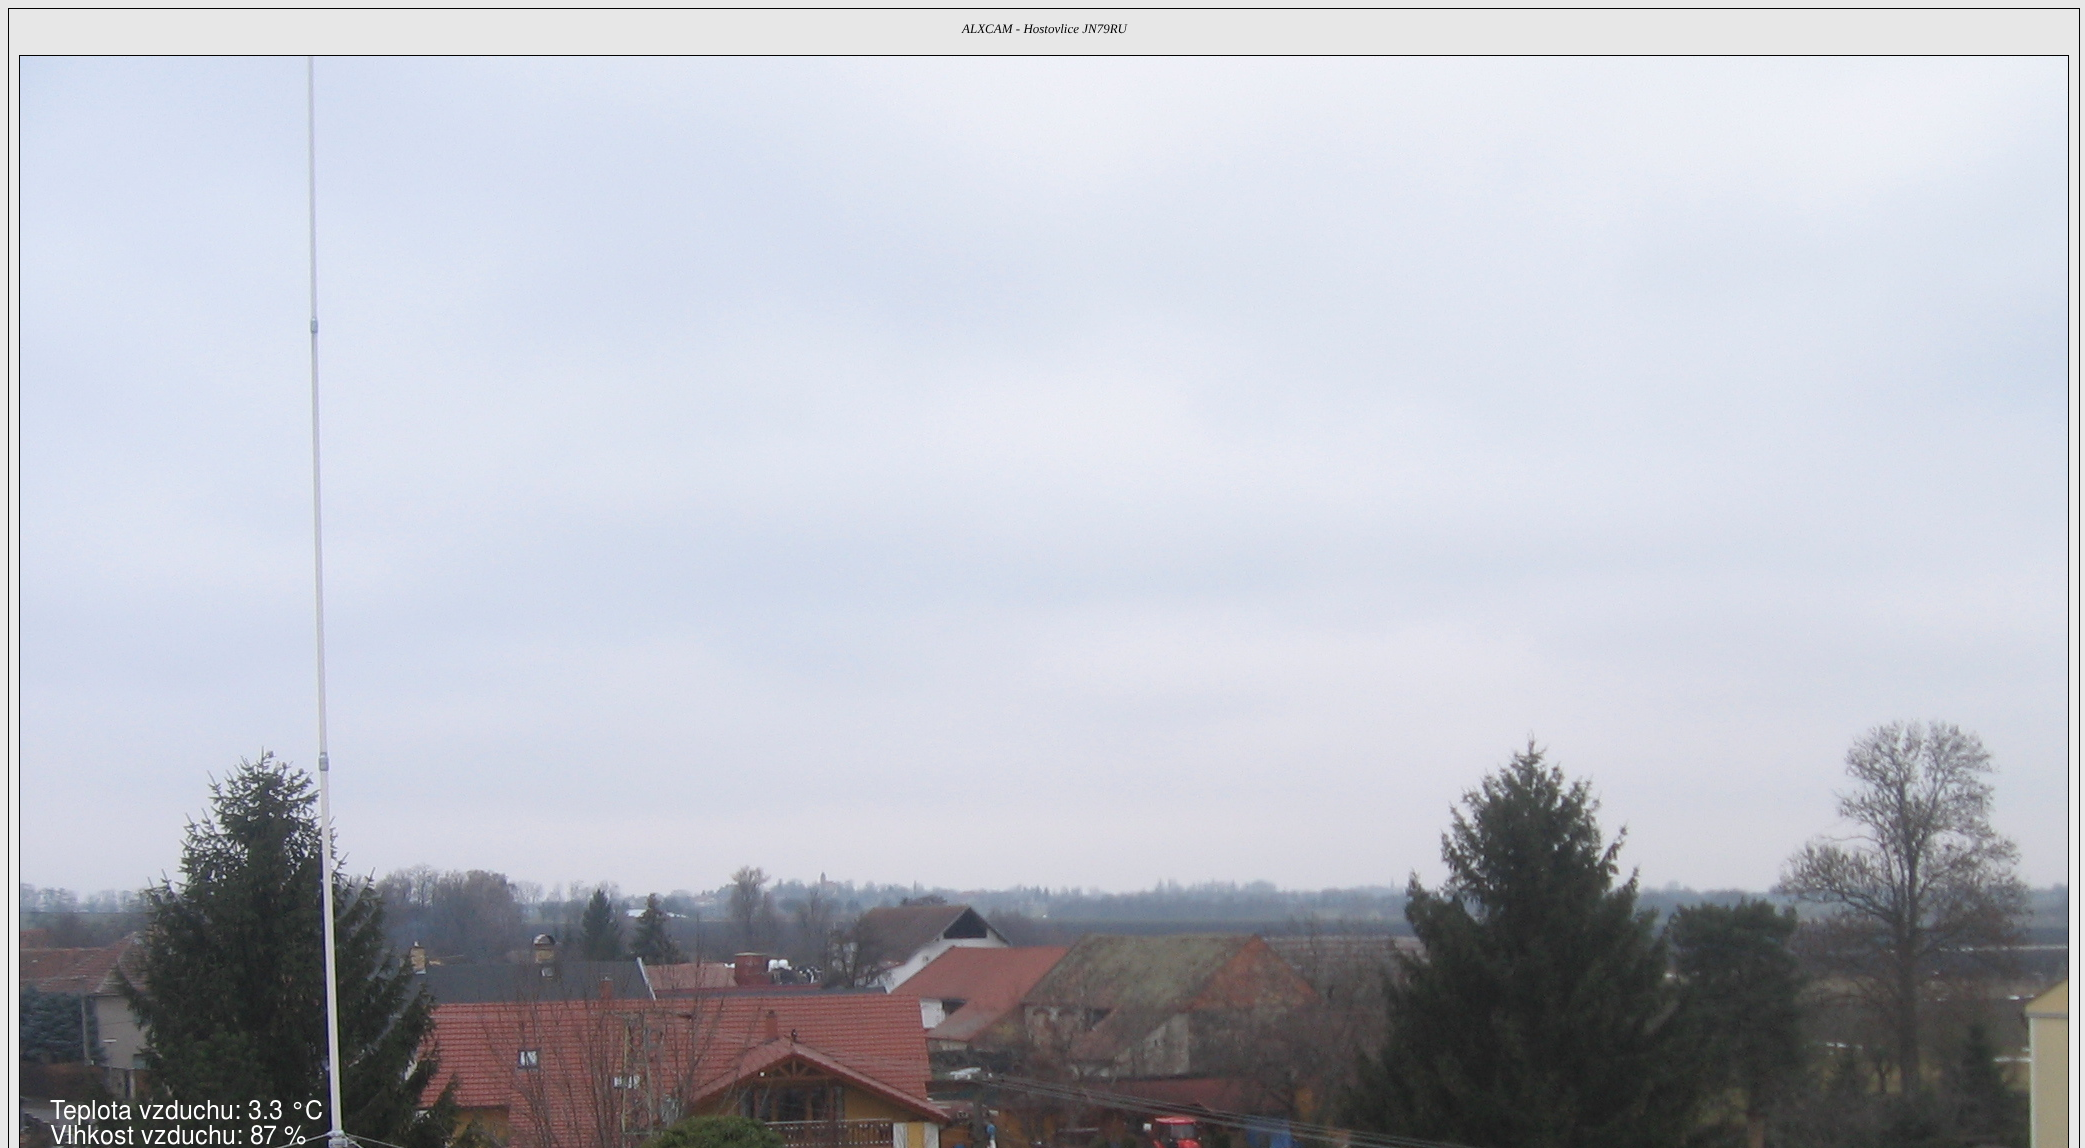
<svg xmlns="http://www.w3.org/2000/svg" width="2085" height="1148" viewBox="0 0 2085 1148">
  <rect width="100%" height="100%" fill="rgb(231,231,231)"/>
  <rect x="8.5" y="8.5" width="2071" height="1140" fill="none" stroke="rgb(0,0,0)"/>
  <text x="962" y="33" font-family="Liberation Serif" font-size="13" font-style="italic" fill="rgb(0,0,0)">ALXCAM - Hostovlice JN79RU</text>
  <rect x="19.5" y="55.5" width="2049" height="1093" fill="none" stroke="rgb(0,0,0)"/>
  <image x="20" y="56" width="2048" height="1092" href="pic1.png"/>
</svg>
